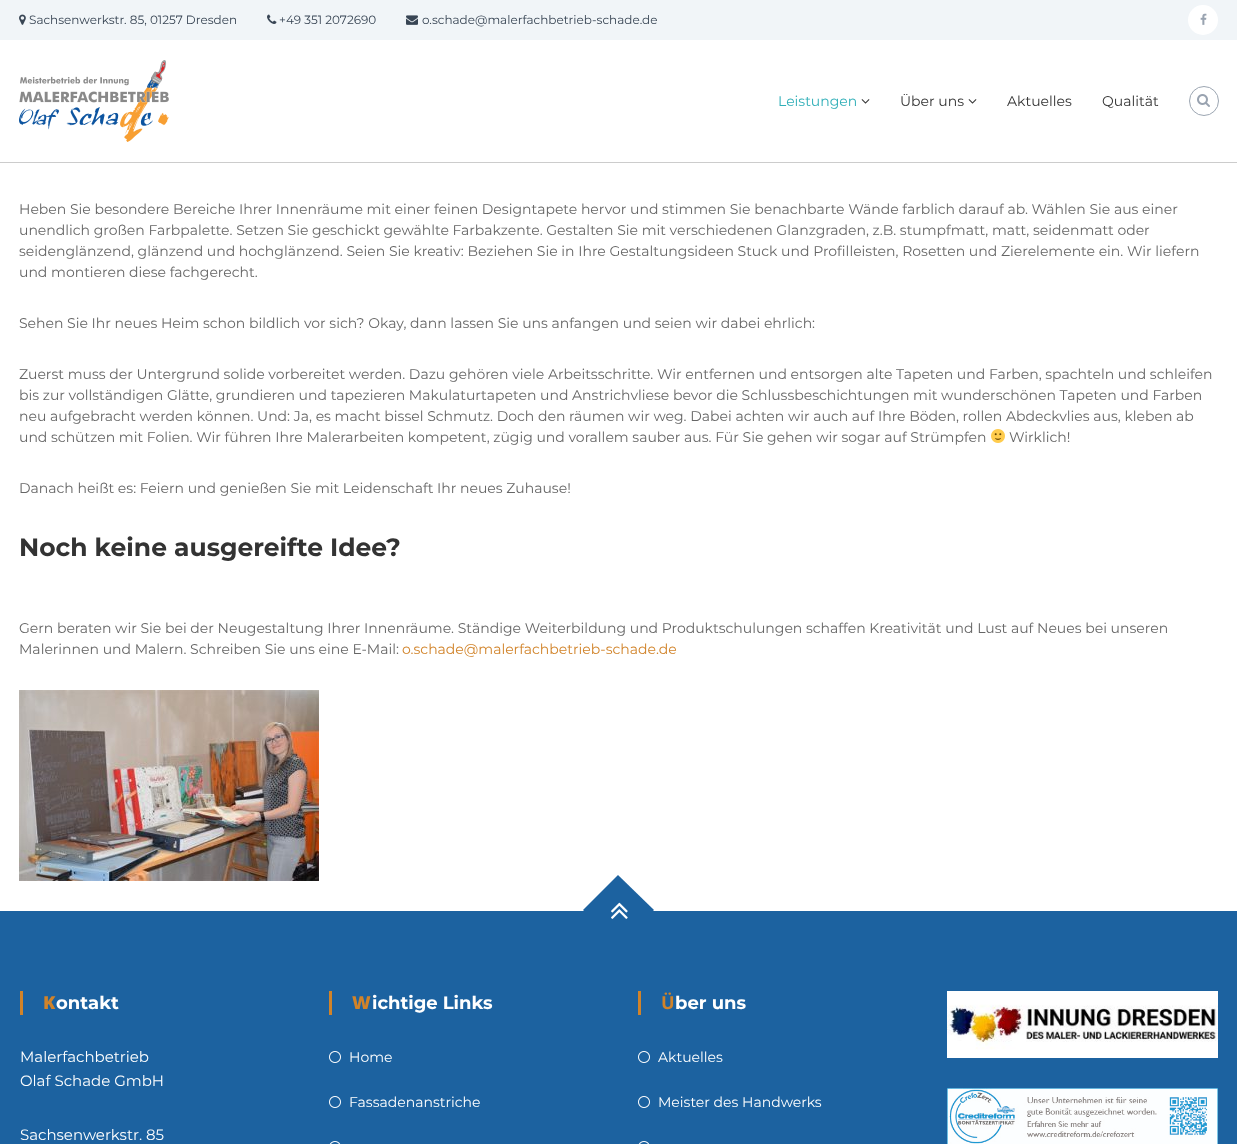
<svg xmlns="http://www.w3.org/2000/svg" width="1237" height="1144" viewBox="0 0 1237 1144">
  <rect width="100%" height="100%" fill="rgb(255,255,255)"/>
  <rect x="0" y="0" width="1237" height="40" fill="rgb(241,245,248)"/>
  <image x="19" y="14" width="7" height="11" href="pic1.png"/>
  <text x="29" y="24" font-family="Montserrat" font-size="12" fill="rgb(56,69,84)">Sachsenwerkstr. 85, 01257 Dresden</text>
  <image x="267" y="14" width="10" height="10" href="pic2.png"/>
  <text x="279" y="24" font-family="Montserrat" font-size="12" fill="rgb(56,69,84)">+49 351 2072690</text>
  <image x="406" y="15" width="12" height="10" href="pic3.png"/>
  <text x="422" y="24" font-family="Montserrat" font-size="12" fill="rgb(56,69,84)">o.schade@malerfachbetrieb-schade.de</text>
  <circle cx="1203" cy="20" r="15" fill="rgb(255,255,255)"/>
  <image x="1200" y="13" width="7" height="12" href="pic4.png"/>
  <rect x="0" y="41" width="1237" height="122" fill="rgba(0,0,0,0.2)" filter="blur(0.5px)"/>
  <rect x="0" y="40" width="1237" height="122" fill="rgb(255,255,255)"/>
  <image x="19" y="60" width="150" height="82" href="pic5.png"/>
  <text x="778" y="106" font-family="Montserrat" font-size="14" fill="rgb(48,175,184)">Leistungen</text>
  <image x="861" y="99" width="9" height="5" href="pic6.png"/>
  <text x="900" y="106" font-family="Montserrat" font-size="14" fill="rgb(51,51,51)">Über uns</text>
  <image x="968" y="99" width="9" height="5" href="pic6.png"/>
  <g font-family="Montserrat" font-size="14" fill="rgb(51,51,51)">
    <text x="1007" y="106">Aktuelles</text>
    <text x="1102" y="106">Qualität</text>
  </g>
  <circle cx="1204" cy="101" r="14.5" fill="none" stroke="rgb(156,166,178)"/>
  <image x="1197" y="94" width="13" height="13" href="pic7.png"/>
  <g font-family="Montserrat" font-size="14" fill="rgb(102,102,102)">
    <text>
      <tspan x="19" y="214">Heben Sie besondere Bereiche Ihrer Innenräume mit einer feinen Designtapete hervor und stimmen Sie benachbarte Wände farblich darauf ab. Wählen Sie aus einer</tspan>
      <tspan x="19" y="235">unendlich großen Farbpalette. Setzen Sie geschickt gewählte Farbakzente. Gestalten Sie mit verschiedenen Glanzgraden, z.B. stumpfmatt, matt, seidenmatt oder</tspan>
      <tspan x="19" y="256">seidenglänzend, glänzend und hochglänzend. Seien Sie kreativ: Beziehen Sie in Ihre Gestaltungsideen Stuck und Profilleisten, Rosetten und Zierelemente ein. Wir liefern</tspan>
      <tspan x="19" y="277">und montieren diese fachgerecht.</tspan>
    </text>
    <text x="19" y="328">Sehen Sie Ihr neues Heim schon bildlich vor sich? Okay, dann lassen Sie uns anfangen und seien wir dabei ehrlich:</text>
    <text>
      <tspan x="19" y="379">Zuerst muss der Untergrund solide vorbereitet werden. Dazu gehören viele Arbeitsschritte. Wir entfernen und entsorgen alte Tapeten und Farben, spachteln und schleifen</tspan>
      <tspan x="19" y="400">bis zur vollständigen Glätte, grundieren und tapezieren Makulaturtapeten und Anstrichvliese bevor die Schlussbeschichtungen mit wunderschönen Tapeten und Farben</tspan>
      <tspan x="19" y="421">neu aufgebracht werden können. Und: Ja, es macht bissel Schmutz. Doch den räumen wir weg. Dabei achten wir auch auf Ihre Böden, rollen Abdeckvlies aus, kleben ab</tspan>
      <tspan x="19" y="442">und schützen mit Folien. Wir führen Ihre Malerarbeiten kompetent, zügig und vorallem sauber aus. Für Sie gehen wir sogar auf Strümpfen</tspan>
    </text>
  </g>
  <image x="991" y="429" width="14" height="14" href="pic8.png"/>
  <g font-family="Montserrat" font-size="14" fill="rgb(102,102,102)">
    <text x="1009" y="442">Wirklich!</text>
    <text x="19" y="493">Danach heißt es: Feiern und genießen Sie mit Leidenschaft Ihr neues Zuhause!</text>
  </g>
  <text x="19" y="556" font-family="Montserrat" font-size="25" font-weight="bold" fill="rgb(51,51,51)">Noch keine ausgereifte Idee?</text>
  <g font-family="Montserrat" font-size="14" fill="rgb(102,102,102)">
    <text>
      <tspan x="19" y="633">Gern beraten wir Sie bei der Neugestaltung Ihrer Innenräume. Ständige Weiterbildung und Produktschulungen schaffen Kreativität und Lust auf Neues bei unseren</tspan>
      <tspan x="19" y="654">Malerinnen und Malern. Schreiben Sie uns eine E-Mail:</tspan>
    </text>
  </g>
  <text x="402" y="654" font-family="Montserrat" font-size="14" fill="rgb(209,131,41)">o.schade@malerfachbetrieb-schade.de</text>
  <image x="19" y="690" width="300" height="191" href="pic9.png"/>
  <rect x="0" y="911" width="1237" height="233" fill="rgb(28,98,160)"/>
  <path d="M618 875L654 910L618 946L583 910Z" fill="rgb(28,98,160)"/>
  <image x="611" y="902" width="17" height="17" href="pic10.png"/>
  <rect x="20" y="991" width="3" height="24" fill="rgb(209,131,41)"/>
  <text x="43" y="1009" font-family="Noto Sans" font-size="18" font-weight="900" fill="rgb(209,131,41)">K</text>
  <text x="56" y="1009" font-family="Montserrat" font-size="18" font-weight="bold" fill="rgb(255,255,255)">ontakt</text>
  <g font-family="Montserrat" font-size="15" fill="rgb(255,255,255)">
    <text>
      <tspan x="20" y="1062">Malerfachbetrieb</tspan>
      <tspan x="20" y="1086">Olaf Schade GmbH</tspan>
    </text>
    <text x="20" y="1140">Sachsenwerkstr. 85</text>
  </g>
  <rect x="329" y="991" width="3" height="24" fill="rgb(209,131,41)"/>
  <text x="352" y="1009" font-family="Noto Sans" font-size="18" font-weight="900" fill="rgb(209,131,41)">W</text>
  <text x="372" y="1009" font-family="Montserrat" font-size="18" font-weight="bold" fill="rgb(255,255,255)">ichtige Links</text>
  <image x="329" y="1051" width="12" height="12" href="pic11.png"/>
  <text x="349" y="1062" font-family="Montserrat" font-size="14" fill="rgb(255,255,255)">Home</text>
  <image x="329" y="1096" width="12" height="12" href="pic11.png"/>
  <text x="349" y="1107" font-family="Montserrat" font-size="14" fill="rgb(255,255,255)">Fassadenanstriche</text>
  <image x="329" y="1141" width="12" height="3" href="pic12.png"/>
  <rect x="638" y="991" width="3" height="24" fill="rgb(209,131,41)"/>
  <text x="661" y="1009" font-family="Noto Sans" font-size="18" font-weight="bold" fill="rgb(209,131,41)">Ü</text>
  <text x="675" y="1009" font-family="Montserrat" font-size="18" font-weight="bold" fill="rgb(255,255,255)">ber uns</text>
  <image x="638" y="1051" width="12" height="12" href="pic11.png"/>
  <text x="658" y="1062" font-family="Montserrat" font-size="14" fill="rgb(255,255,255)">Aktuelles</text>
  <image x="638" y="1096" width="12" height="12" href="pic11.png"/>
  <text x="658" y="1107" font-family="Montserrat" font-size="14" fill="rgb(255,255,255)">Meister des Handwerks</text>
  <image x="638" y="1141" width="12" height="3" href="pic12.png"/>
  <image x="947" y="991" width="271" height="67" href="pic13.png"/>
  <image x="947" y="1088" width="271" height="56" href="pic14.png"/>
</svg>
